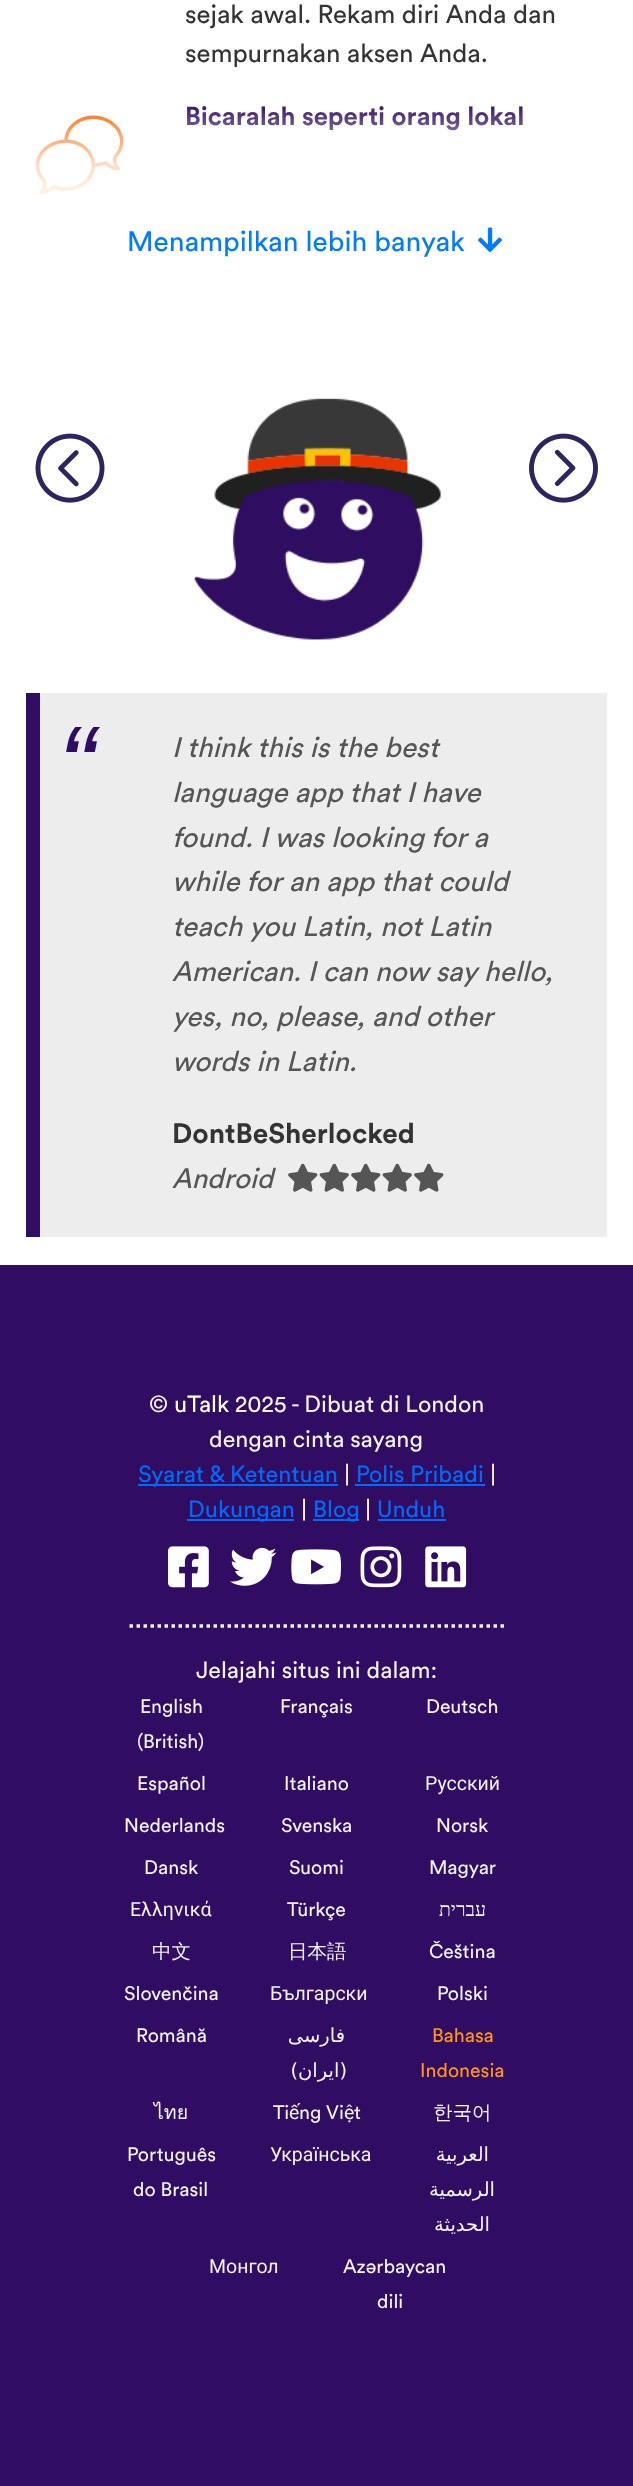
<svg xmlns="http://www.w3.org/2000/svg" width="633" height="2486" viewBox="0 0 633 2486">
  <defs>
    <linearGradient id="g1" gradientUnits="userSpaceOnUse" x1="317" y1="291" x2="317" y2="102"><stop offset="0" stop-color="rgb(255,255,255)"/><stop offset="0.43" stop-color="rgb(255,255,255)"/><stop offset="0.68" stop-color="rgb(255,255,255)" stop-opacity="0.75"/><stop offset="1" stop-color="rgb(255,255,255)" stop-opacity="0"/></linearGradient>
  </defs>
  <rect width="100%" height="100%" fill="rgb(255,255,255)"/>
  <g font-family="Circular" font-size="25.7" fill="rgb(51,51,51)">
    <text>
      <tspan x="185" y="23">sejak awal. Rekam diri Anda dan</tspan>
      <tspan x="185" y="62">sempurnakan aksen Anda.</tspan>
    </text>
  </g>
  <image x="35" y="115" width="89" height="80" href="pic1.png"/>
  <text x="185" y="125" font-family="Circular" font-size="25.7" font-weight="bold" fill="rgb(48,13,98)">Bicaralah seperti orang lokal</text>
  <rect x="35" y="106" width="487" height="89" fill="url(#g1)"/>
  <text x="127" y="251" font-family="Circular" font-size="28" fill="rgb(0,123,255)">Menampilkan lebih banyak</text>
  <image x="478" y="227" width="24" height="25" href="pic2.png"/>
  <image x="35" y="433" width="70" height="70" href="pic3.png"/>
  <image x="194" y="398" width="247" height="242" href="pic4.png"/>
  <image x="529" y="433" width="69" height="70" href="pic5.png"/>
  <rect x="40" y="693" width="567" height="544" fill="rgb(237,237,237)"/>
  <rect x="26" y="693" width="14" height="544" fill="rgb(48,13,98)"/>
  <text x="58" y="804" font-family="Liberation Sans" font-size="112" font-style="italic" fill="rgb(48,13,98)">“</text>
  <g font-family="Circular" font-size="28" font-style="italic" fill="rgb(85,85,85)">
    <text>
      <tspan x="172" y="757">I think this is the best</tspan>
      <tspan x="172" y="802">language app that I have</tspan>
      <tspan x="172" y="847">found. I was looking for a</tspan>
      <tspan x="172" y="891">while for an app that could</tspan>
      <tspan x="172" y="936">teach you Latin, not Latin</tspan>
      <tspan x="172" y="981">American. I can now say hello,</tspan>
      <tspan x="172" y="1026">yes, no, please, and other</tspan>
      <tspan x="172" y="1071">words in Latin.</tspan>
    </text>
  </g>
  <text x="172" y="1143" font-family="Circular" font-size="28" font-weight="bold" fill="rgb(51,51,51)">DontBeSherlocked</text>
  <text x="172" y="1188" font-family="Circular" font-size="28" font-style="italic" fill="rgb(85,85,85)">Android</text>
  <image x="288" y="1163" width="30" height="29" href="pic6.png"/>
  <image x="319" y="1163" width="30" height="29" href="pic7.png"/>
  <image x="351" y="1163" width="30" height="29" href="pic6.png"/>
  <image x="382" y="1163" width="30" height="29" href="pic7.png"/>
  <image x="414" y="1163" width="30" height="29" href="pic6.png"/>
  <rect x="0" y="1265" width="633" height="1221" fill="rgb(48,13,98)"/>
  <text x="149" y="1412" font-family="Circular" font-size="23.25" fill="rgb(242,242,242)">©</text>
  <text x="174" y="1412" font-family="Circular" font-size="23.25" fill="rgb(255,255,255)">uTalk</text>
  <g font-family="Circular" font-size="23.25" fill="rgb(242,242,242)">
    <text x="235" y="1412">2025 - Dibuat di London</text>
    <text x="209" y="1447">dengan cinta sayang</text>
  </g>
  <rect x="138" y="1484" width="200" height="2" fill="rgb(0,107,249)"/>
  <text x="138" y="1482" font-family="Circular" font-size="23.25" fill="rgb(0,107,249)">Syarat &amp; Ketentuan</text>
  <text x="344" y="1482" font-family="Circular" font-size="23.25" fill="rgb(242,242,242)">|</text>
  <text x="356" y="1482" font-family="Circular" font-size="23.25" fill="rgb(0,107,249)">Polis Pribadi</text>
  <rect x="355" y="1484" width="130" height="2" fill="rgb(0,107,249)"/>
  <text x="490" y="1482" font-family="Circular" font-size="23.25" fill="rgb(242,242,242)">|</text>
  <rect x="187" y="1519" width="107" height="2" fill="rgb(0,107,249)"/>
  <text x="188" y="1517" font-family="Circular" font-size="23.25" fill="rgb(0,107,249)">Dukungan</text>
  <text x="301" y="1517" font-family="Circular" font-size="23.25" fill="rgb(242,242,242)">|</text>
  <rect x="313" y="1519" width="46" height="2" fill="rgb(0,107,249)"/>
  <text x="313" y="1517" font-family="Circular" font-size="23.25" fill="rgb(0,107,249)">Blog</text>
  <text x="365" y="1517" font-family="Circular" font-size="23.25" fill="rgb(242,242,242)">|</text>
  <text x="377" y="1517" font-family="Circular" font-size="23.25" fill="rgb(0,107,249)">Unduh</text>
  <rect x="378" y="1519" width="68" height="2" fill="rgb(0,107,249)"/>
  <image x="168" y="1546" width="41" height="42" href="pic8.png"/>
  <image x="230" y="1547" width="47" height="39" href="pic9.png"/>
  <image x="291" y="1549" width="51" height="36" href="pic10.png"/>
  <image x="360" y="1546" width="42" height="42" href="pic11.png"/>
  <image x="425" y="1546" width="42" height="42" href="pic12.png"/>
  <path d="M129.5 1626H504" fill="none" stroke="rgb(242,242,242)" stroke-width="3.5" stroke-dasharray="3.5 3.5"/>
  <text x="196" y="1678" font-family="Circular" font-size="23.25" fill="rgb(242,242,242)">Jelajahi situs ini dalam:</text>
  <g font-family="Circular" font-size="19.5" fill="rgb(242,242,242)">
    <text x="140" y="1713">English</text>
    <text x="137" y="1748">(British)</text>
    <text x="280" y="1713">Français</text>
    <text x="426" y="1713">Deutsch</text>
    <text x="137" y="1790">Español</text>
    <text x="284" y="1790">Italiano</text>
  </g>
  <text x="425" y="1790" font-family="Roboto" font-size="19.5" fill="rgb(242,242,242)">Русский</text>
  <g font-family="Circular" font-size="19.5" fill="rgb(242,242,242)">
    <text x="124" y="1832">Nederlands</text>
    <text x="281" y="1832">Svenska</text>
    <text x="436" y="1832">Norsk</text>
    <text x="144" y="1874">Dansk</text>
    <text x="289" y="1874">Suomi</text>
    <text x="429" y="1874">Magyar</text>
  </g>
  <text x="130" y="1916" font-family="Roboto" font-size="19.5" fill="rgb(242,242,242)">Ελληνικά</text>
  <text x="287" y="1916" font-family="Circular" font-size="19.5" fill="rgb(242,242,242)">Türkçe</text>
  <text x="486" y="1916" font-family="Liberation Serif" font-size="19.5" direction="rtl" fill="rgb(242,242,242)">עברית</text>
  <g font-family="WenQuanYi Zen Hei" font-size="19.5" font-weight="500" fill="rgb(242,242,242)">
    <text x="152" y="1958">中文</text>
    <text x="288" y="1958">日本語</text>
  </g>
  <g font-family="Circular" font-size="19.5" fill="rgb(242,242,242)">
    <text x="429" y="1958">Čeština</text>
    <text x="124" y="2000">Slovenčina</text>
  </g>
  <text x="270" y="2000" font-family="Roboto" font-size="19.5" fill="rgb(242,242,242)">Български</text>
  <g font-family="Circular" font-size="19.5" fill="rgb(242,242,242)">
    <text x="437" y="2000">Polski</text>
    <text x="136" y="2042">Română</text>
  </g>
  <g font-family="DejaVu Sans" font-size="19.5" direction="rtl" fill="rgb(242,242,242)">
    <text x="345" y="2042">فارسی</text>
    <text x="347" y="2077">(ایران)</text>
  </g>
  <g font-family="Circular" font-size="19.5" fill="rgb(255,151,31)">
    <text x="432" y="2042">Bahasa</text>
    <text x="420" y="2077">Indonesia</text>
  </g>
  <text x="154" y="2119" font-family="Loma" font-size="19.5" fill="rgb(242,242,242)">ไทย</text>
  <text x="273" y="2119" font-family="Circular" font-size="19.5" fill="rgb(242,242,242)">Ti</text>
  <text x="289" y="2119" font-family="Roboto" font-size="19.5" fill="rgb(242,242,242)">ế</text>
  <text x="299" y="2119" font-family="Circular" font-size="19.5" fill="rgb(242,242,242)">ng Vi</text>
  <text x="344" y="2119" font-family="Roboto" font-size="19.5" fill="rgb(242,242,242)">ệ</text>
  <text x="354" y="2119" font-family="Circular" font-size="19.5" fill="rgb(242,242,242)">t</text>
  <text x="433" y="2119" font-family="WenQuanYi Zen Hei" font-size="19.5" font-weight="500" fill="rgb(242,242,242)">한국어</text>
  <g font-family="Circular" font-size="19.5" fill="rgb(242,242,242)">
    <text x="127" y="2161">Português</text>
    <text x="133" y="2196">do Brasil</text>
  </g>
  <text x="270" y="2161" font-family="Roboto" font-size="19.5" fill="rgb(242,242,242)">Українська</text>
  <g font-family="DejaVu Sans" font-size="19.5" direction="rtl" fill="rgb(242,242,242)">
    <text x="489" y="2161">العربية</text>
    <text x="495" y="2196">الرسمية</text>
    <text x="490" y="2231">الحديثة</text>
  </g>
  <text x="209" y="2273" font-family="Roboto" font-size="19.5" fill="rgb(242,242,242)">Монгол</text>
  <g font-family="Circular" font-size="19.5" fill="rgb(242,242,242)">
    <text x="343" y="2273">Azərbaycan</text>
    <text x="377" y="2308">dili</text>
  </g>
</svg>
